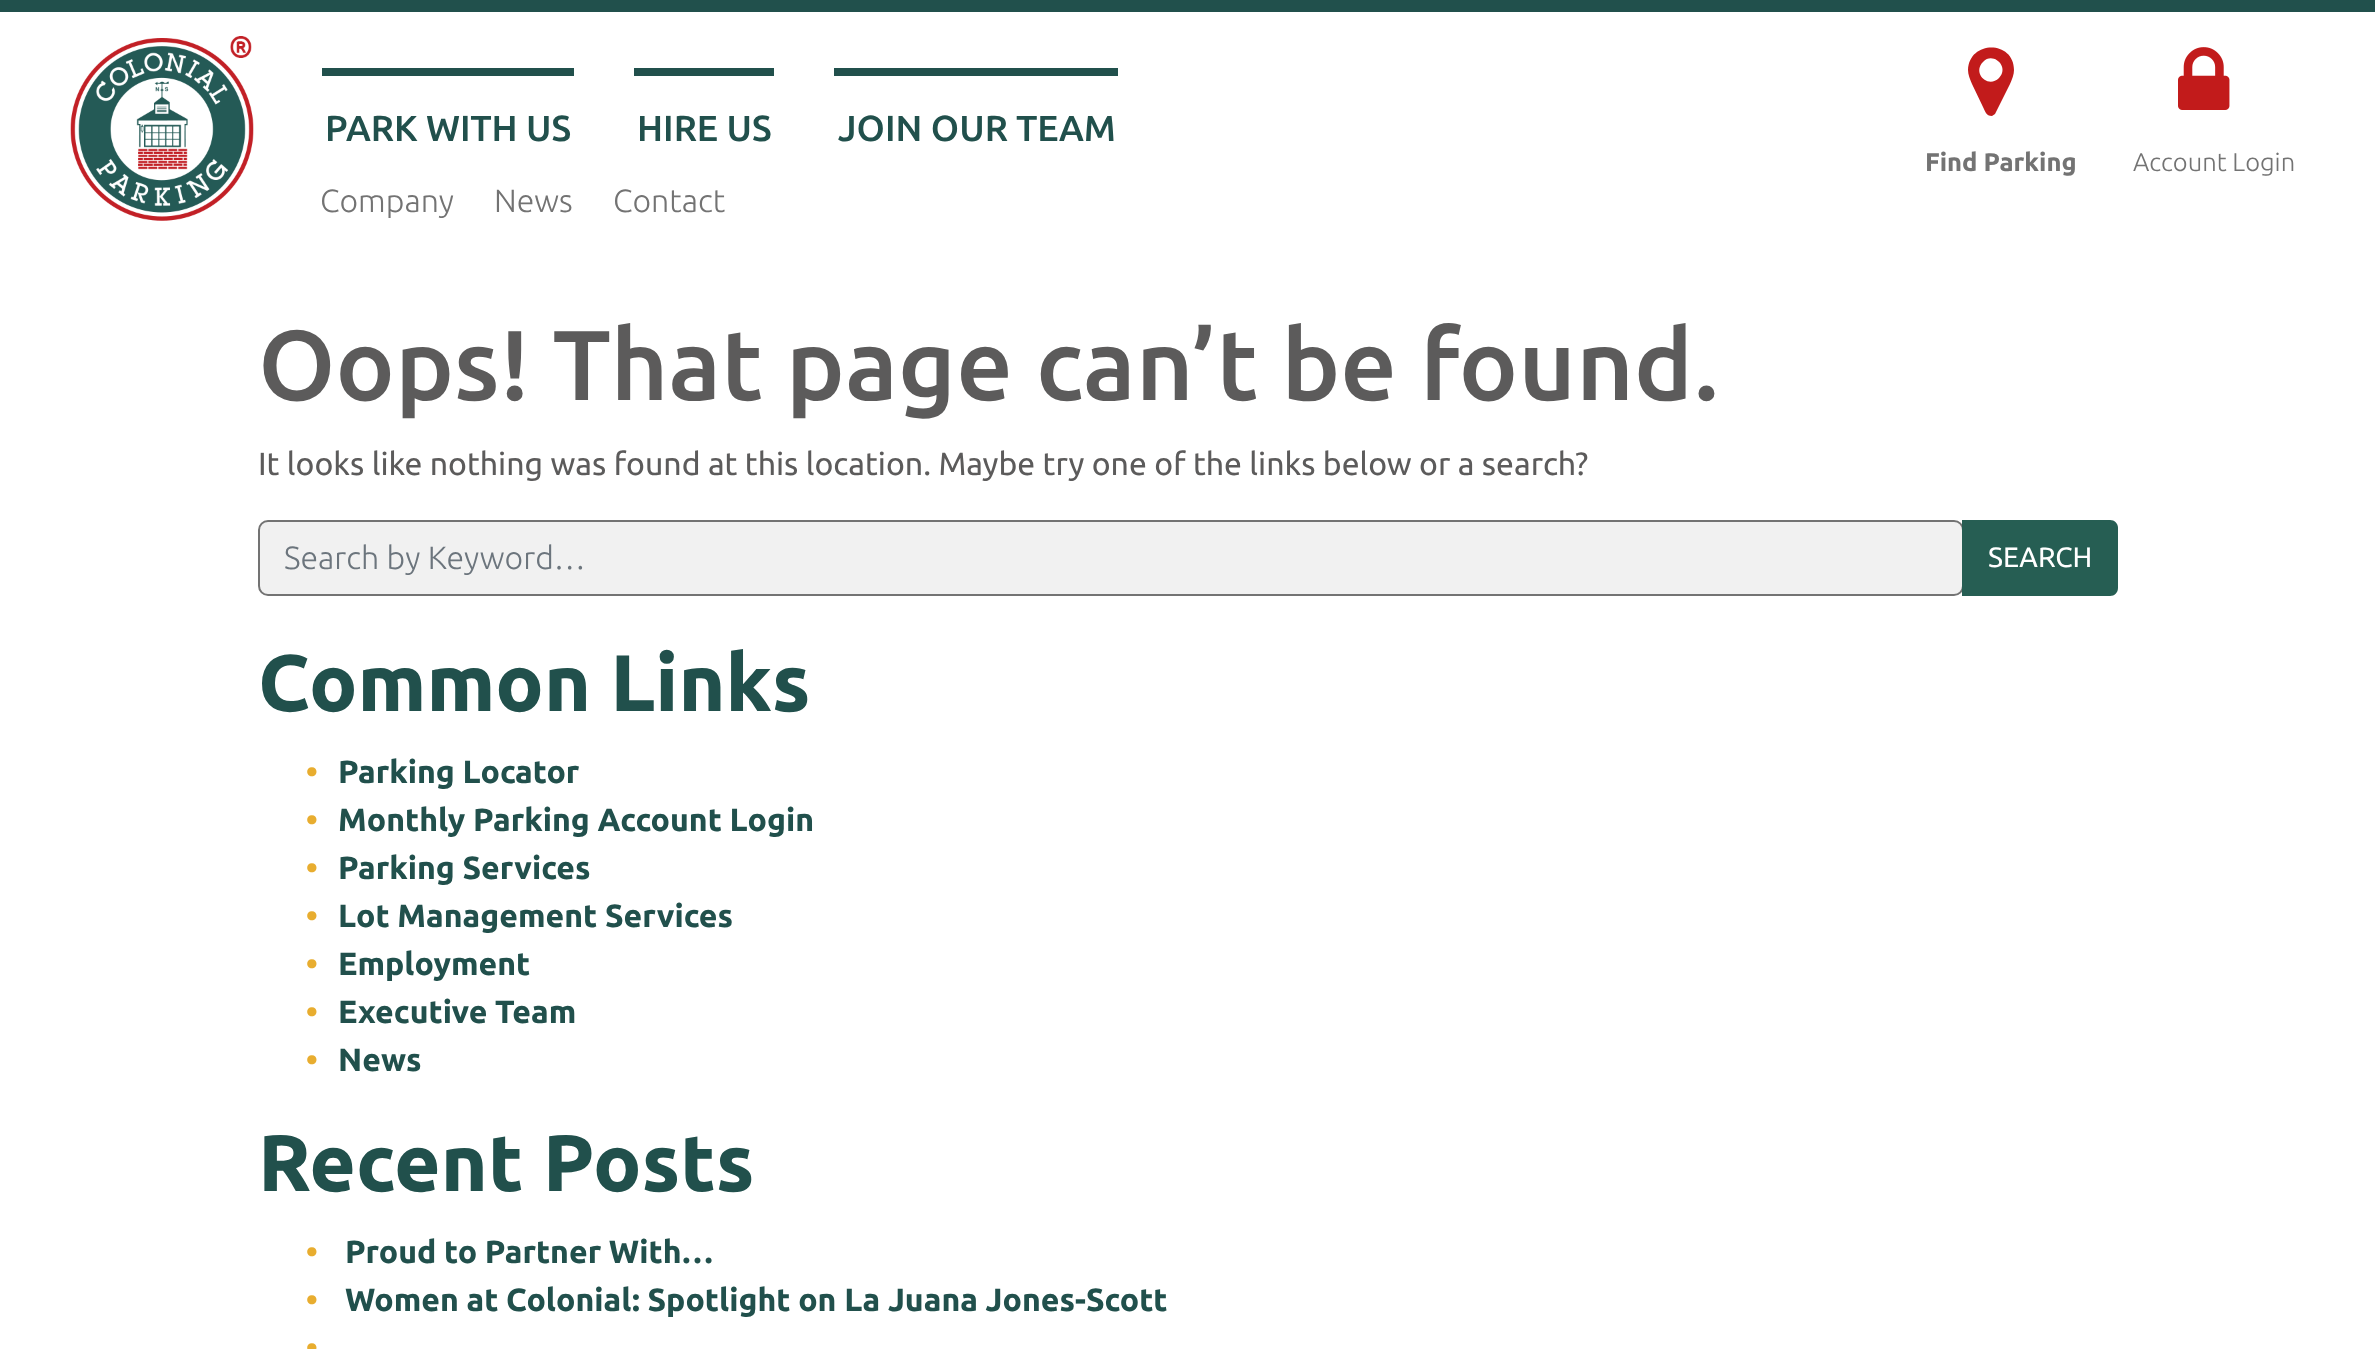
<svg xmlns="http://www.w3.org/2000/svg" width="2375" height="1349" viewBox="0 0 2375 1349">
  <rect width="100%" height="100%" fill="rgb(255,255,255)"/>
  <rect x="0" y="0" width="2375" height="12" fill="rgb(33,80,76)"/>
  <image x="70" y="36" width="184" height="185" href="pic1.png"/>
  <rect x="322" y="68" width="252" height="8" fill="rgb(33,80,76)"/>
  <text x="325" y="141" font-family="Ubuntu" font-size="36.25" font-weight="500" fill="rgb(33,80,76)">PARK WITH US</text>
  <rect x="634" y="68" width="140" height="8" fill="rgb(33,80,76)"/>
  <text x="637" y="141" font-family="Ubuntu" font-size="36.25" font-weight="500" fill="rgb(33,80,76)">HIRE US</text>
  <rect x="834" y="68" width="284" height="8" fill="rgb(33,80,76)"/>
  <text x="838" y="141" font-family="Ubuntu" font-size="36.25" font-weight="500" fill="rgb(33,80,76)">JOIN OUR TEAM</text>
  <g font-family="Ubuntu" font-size="32" font-weight="300" fill="rgb(115,115,115)">
    <text x="320" y="212">Company</text>
    <text x="494" y="212">News</text>
    <text x="613" y="212">Contact</text>
  </g>
  <path d="M1999 78C2010 67 1993 51 1983 62C1972 73 1988 89 1999 78ZM2014 70C2014 75 2012 79 2010 84L1995 114C1994 115 1993 115 1992 116C1986 116 1985 111 1983 107L1972 84C1970 79 1968 75 1968 70C1969 40 2014 40 2014 70Z" fill="rgb(194,27,27)"/>
  <text x="1925" y="171" font-family="Ubuntu" font-size="25.5" font-weight="bold" fill="rgb(115,115,115)">Find Parking</text>
  <image x="2178" y="47" width="52" height="63" href="pic2.png"/>
  <text x="2133" y="171" font-family="Ubuntu" font-size="25.5" font-weight="300" fill="rgb(115,115,115)">Account Login</text>
  <text x="258" y="400" font-family="Ubuntu" font-size="99.25" font-weight="500" fill="rgb(92,91,91)">Oops! That page can’t be found.</text>
  <text x="258" y="475" font-family="Ubuntu" font-size="32" fill="rgb(92,91,91)">It looks like nothing was found at this location. Maybe try one of the links below or a search?</text>
  <rect x="259" y="521" width="1704" height="74" rx="9" fill="rgb(241,241,241)" stroke="rgb(115,115,115)" stroke-width="2"/>
  <text x="284" y="569" font-family="Ubuntu" font-size="32" font-weight="300" fill="rgb(108,117,125)">Search by Keyword…</text>
  <path d="M1962 520H2110C2114.5 520 2118 523.5 2118 528V588C2118 592.5 2114.5 596 2110 596H1962Z" fill="rgb(38,94,83)"/>
  <text x="1988" y="567" font-family="Ubuntu" font-size="28" fill="rgb(255,255,255)">SEARCH</text>
  <text x="258" y="711" font-family="Ubuntu" font-size="80" font-weight="bold" fill="rgb(33,80,76)">Common Links</text>
  <text x="306" y="783" font-family="Ubuntu" font-size="32" font-weight="bold" fill="rgb(232,173,47)">•</text>
  <text x="338" y="783" font-family="Ubuntu" font-size="32" font-weight="bold" fill="rgb(33,80,76)">Parking Locator</text>
  <text x="306" y="831" font-family="Ubuntu" font-size="32" font-weight="bold" fill="rgb(232,173,47)">•</text>
  <text x="338" y="831" font-family="Ubuntu" font-size="32" font-weight="bold" fill="rgb(33,80,76)">Monthly Parking Account Login</text>
  <text x="306" y="879" font-family="Ubuntu" font-size="32" font-weight="bold" fill="rgb(232,173,47)">•</text>
  <text x="338" y="879" font-family="Ubuntu" font-size="32" font-weight="bold" fill="rgb(33,80,76)">Parking Services</text>
  <text x="306" y="927" font-family="Ubuntu" font-size="32" font-weight="bold" fill="rgb(232,173,47)">•</text>
  <text x="338" y="927" font-family="Ubuntu" font-size="32" font-weight="bold" fill="rgb(33,80,76)">Lot Management Services</text>
  <text x="306" y="975" font-family="Ubuntu" font-size="32" font-weight="bold" fill="rgb(232,173,47)">•</text>
  <text x="338" y="975" font-family="Ubuntu" font-size="32" font-weight="bold" fill="rgb(33,80,76)">Employment</text>
  <text x="306" y="1023" font-family="Ubuntu" font-size="32" font-weight="bold" fill="rgb(232,173,47)">•</text>
  <text x="338" y="1023" font-family="Ubuntu" font-size="32" font-weight="bold" fill="rgb(33,80,76)">Executive Team</text>
  <text x="306" y="1071" font-family="Ubuntu" font-size="32" font-weight="bold" fill="rgb(232,173,47)">•</text>
  <text x="338" y="1071" font-family="Ubuntu" font-size="32" font-weight="bold" fill="rgb(33,80,76)">News</text>
  <text x="258" y="1191" font-family="Ubuntu" font-size="80" font-weight="bold" fill="rgb(33,80,76)">Recent Posts</text>
  <text x="306" y="1263" font-family="Ubuntu" font-size="32" font-weight="bold" fill="rgb(232,173,47)">•</text>
  <text x="345" y="1263" font-family="Ubuntu" font-size="32" font-weight="bold" fill="rgb(33,80,76)">Proud to Partner With…</text>
  <text x="306" y="1311" font-family="Ubuntu" font-size="32" font-weight="bold" fill="rgb(232,173,47)">•</text>
  <text x="345" y="1311" font-family="Ubuntu" font-size="32" font-weight="bold" fill="rgb(33,80,76)">Women at Colonial: Spotlight on La Juana Jones-Scott</text>
  <text x="306" y="1359" font-family="Ubuntu" font-size="32" font-weight="bold" fill="rgb(232,173,47)">•</text>
</svg>
